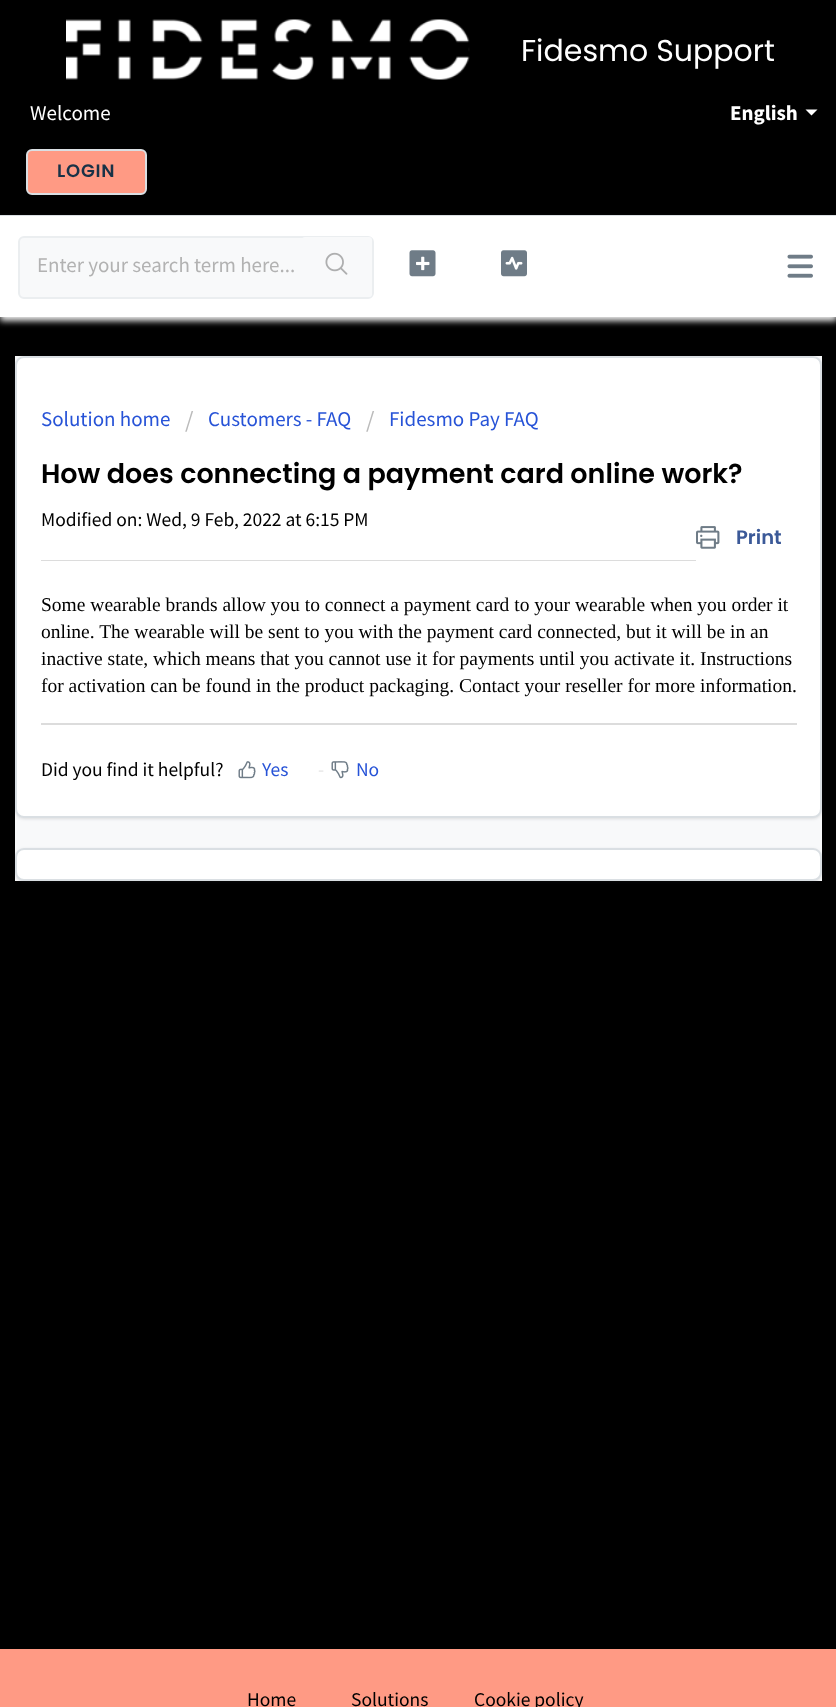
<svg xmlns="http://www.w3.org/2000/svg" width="836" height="1707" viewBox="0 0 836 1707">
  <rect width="100%" height="100%" fill="rgb(0,0,0)"/>
  <rect x="0" y="215" width="836" height="1" fill="rgb(218,223,227)"/>
  <image x="66" y="19" width="404" height="61" href="pic1.png"/>
  <text x="521" y="61" font-family="Poppins" font-size="30" fill="rgb(255,255,255)">Fidesmo Support</text>
  <text x="30" y="120" font-family="Source Sans Pro" font-size="21" fill="rgb(255,255,255)">Welcome</text>
  <text x="730" y="120" font-family="Source Sans Pro" font-size="21" font-weight="bold" fill="rgb(255,255,255)">English</text>
  <path d="M805.5 109.5H817.5L811.5 115.5Z" fill="rgb(255,255,255)"/>
  <rect x="27" y="150" width="119" height="44" rx="5" fill="rgb(255,154,132)" stroke="rgb(218,223,227)" stroke-width="2"/>
  <text x="57" y="177" font-family="Poppins" font-size="18" font-weight="600" letter-spacing="0.75" fill="rgb(24,50,71)">LOGIN</text>
  <rect x="0" y="221" width="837" height="100" fill="rgb(238,238,238)" filter="blur(3px)"/>
  <rect x="0" y="216" width="836" height="101" fill="rgb(255,255,255)"/>
  <image x="787" y="254" width="26" height="24" href="pic2.png"/>
  <rect x="19" y="237" width="354" height="61" rx="5" fill="rgb(248,249,250)" stroke="rgb(235,238,240)" stroke-width="2"/>
  <text x="37" y="272" font-family="Source Sans Pro" font-size="21" fill="rgb(178,178,178)">Enter your search term here...</text>
  <rect x="302" y="237" width="70" height="60" rx="3" fill="rgb(248,249,250)"/>
  <image x="325" y="252" width="23" height="23" href="pic3.png"/>
  <image x="409" y="250" width="27" height="27" href="pic4.png"/>
  <image x="501" y="250" width="26" height="27" href="pic5.png"/>
  <rect x="15" y="356" width="807" height="525" fill="rgb(248,249,250)"/>
  <rect x="15" y="357" width="807" height="462" rx="9" fill="rgba(63,63,68,0.15)" filter="blur(1.5px)"/>
  <rect x="16" y="357" width="805" height="460" rx="8" fill="rgb(255,255,255)" stroke="rgb(218,223,227)" stroke-width="2"/>
  <text x="41" y="426" font-family="Source Sans Pro" font-size="21" fill="rgb(39,83,215)">Solution home</text>
  <text x="185" y="428" font-family="Source Sans Pro" font-size="24" fill="rgb(187,187,187)">/</text>
  <text x="208" y="426" font-family="Source Sans Pro" font-size="21" fill="rgb(39,83,215)">Customers - FAQ</text>
  <text x="366" y="428" font-family="Source Sans Pro" font-size="24" fill="rgb(187,187,187)">/</text>
  <text x="389" y="426" font-family="Source Sans Pro" font-size="21" fill="rgb(39,83,215)">Fidesmo Pay FAQ</text>
  <text x="41" y="483" font-family="Poppins" font-size="27" font-weight="600" fill="rgb(0,0,0)">How does connecting a payment card online work?</text>
  <image x="696" y="526" width="24" height="23" href="pic6.png"/>
  <text x="736" y="544" font-family="Poppins" font-size="19.5" font-weight="600" fill="rgb(59,89,152)">Print</text>
  <text x="41" y="526" font-family="Source Sans Pro" font-size="19.5" fill="rgb(0,0,0)">Modified on: Wed, 9 Feb, 2022 at 6:15 PM</text>
  <rect x="41" y="560" width="655" height="1" fill="rgb(220,220,220)"/>
  <g font-family="Liberation Serif" font-size="19.5" fill="rgb(0,0,0)">
    <text>
      <tspan x="41" y="611">Some wearable brands allow you to connect a payment card to your wearable when you order it</tspan>
      <tspan x="41" y="638">online. The wearable will be sent to you with the payment card connected, but it will be in an</tspan>
      <tspan x="41" y="665">inactive state, which means that you cannot use it for payments until you activate it. Instructions</tspan>
      <tspan x="41" y="692">for activation can be found in the product packaging. Contact your reseller for more information.</tspan>
    </text>
  </g>
  <rect x="41" y="723" width="756" height="2" fill="rgb(220,220,220)"/>
  <text x="41" y="776" font-family="Source Sans Pro" font-size="19.5" fill="rgb(0,0,0)">Did you find it helpful?</text>
  <image x="238" y="761" width="18" height="18" href="pic7.png"/>
  <text x="262" y="776" font-family="Source Sans Pro" font-size="19.5" fill="rgb(39,83,215)">Yes</text>
  <text x="318" y="776" font-family="Source Sans Pro" font-size="19.5" fill="rgb(229,229,229)">-</text>
  <image x="331" y="761" width="18" height="18" href="pic8.png"/>
  <text x="356" y="776" font-family="Source Sans Pro" font-size="19.5" fill="rgb(39,83,215)">No</text>
  <rect x="15" y="849" width="807" height="33" rx="9" fill="rgba(63,63,68,0.15)" filter="blur(1.5px)"/>
  <rect x="16" y="849" width="805" height="31" rx="8" fill="rgb(255,255,255)" stroke="rgb(218,223,227)" stroke-width="2"/>
  <rect x="0" y="1649" width="836" height="58" fill="rgb(255,154,132)"/>
  <g font-family="Source Sans Pro" font-size="19.5" fill="rgb(0,0,0)">
    <text x="247" y="1706">Home</text>
    <text x="351" y="1706">Solutions</text>
    <text x="474" y="1706">Cookie policy</text>
  </g>
</svg>
